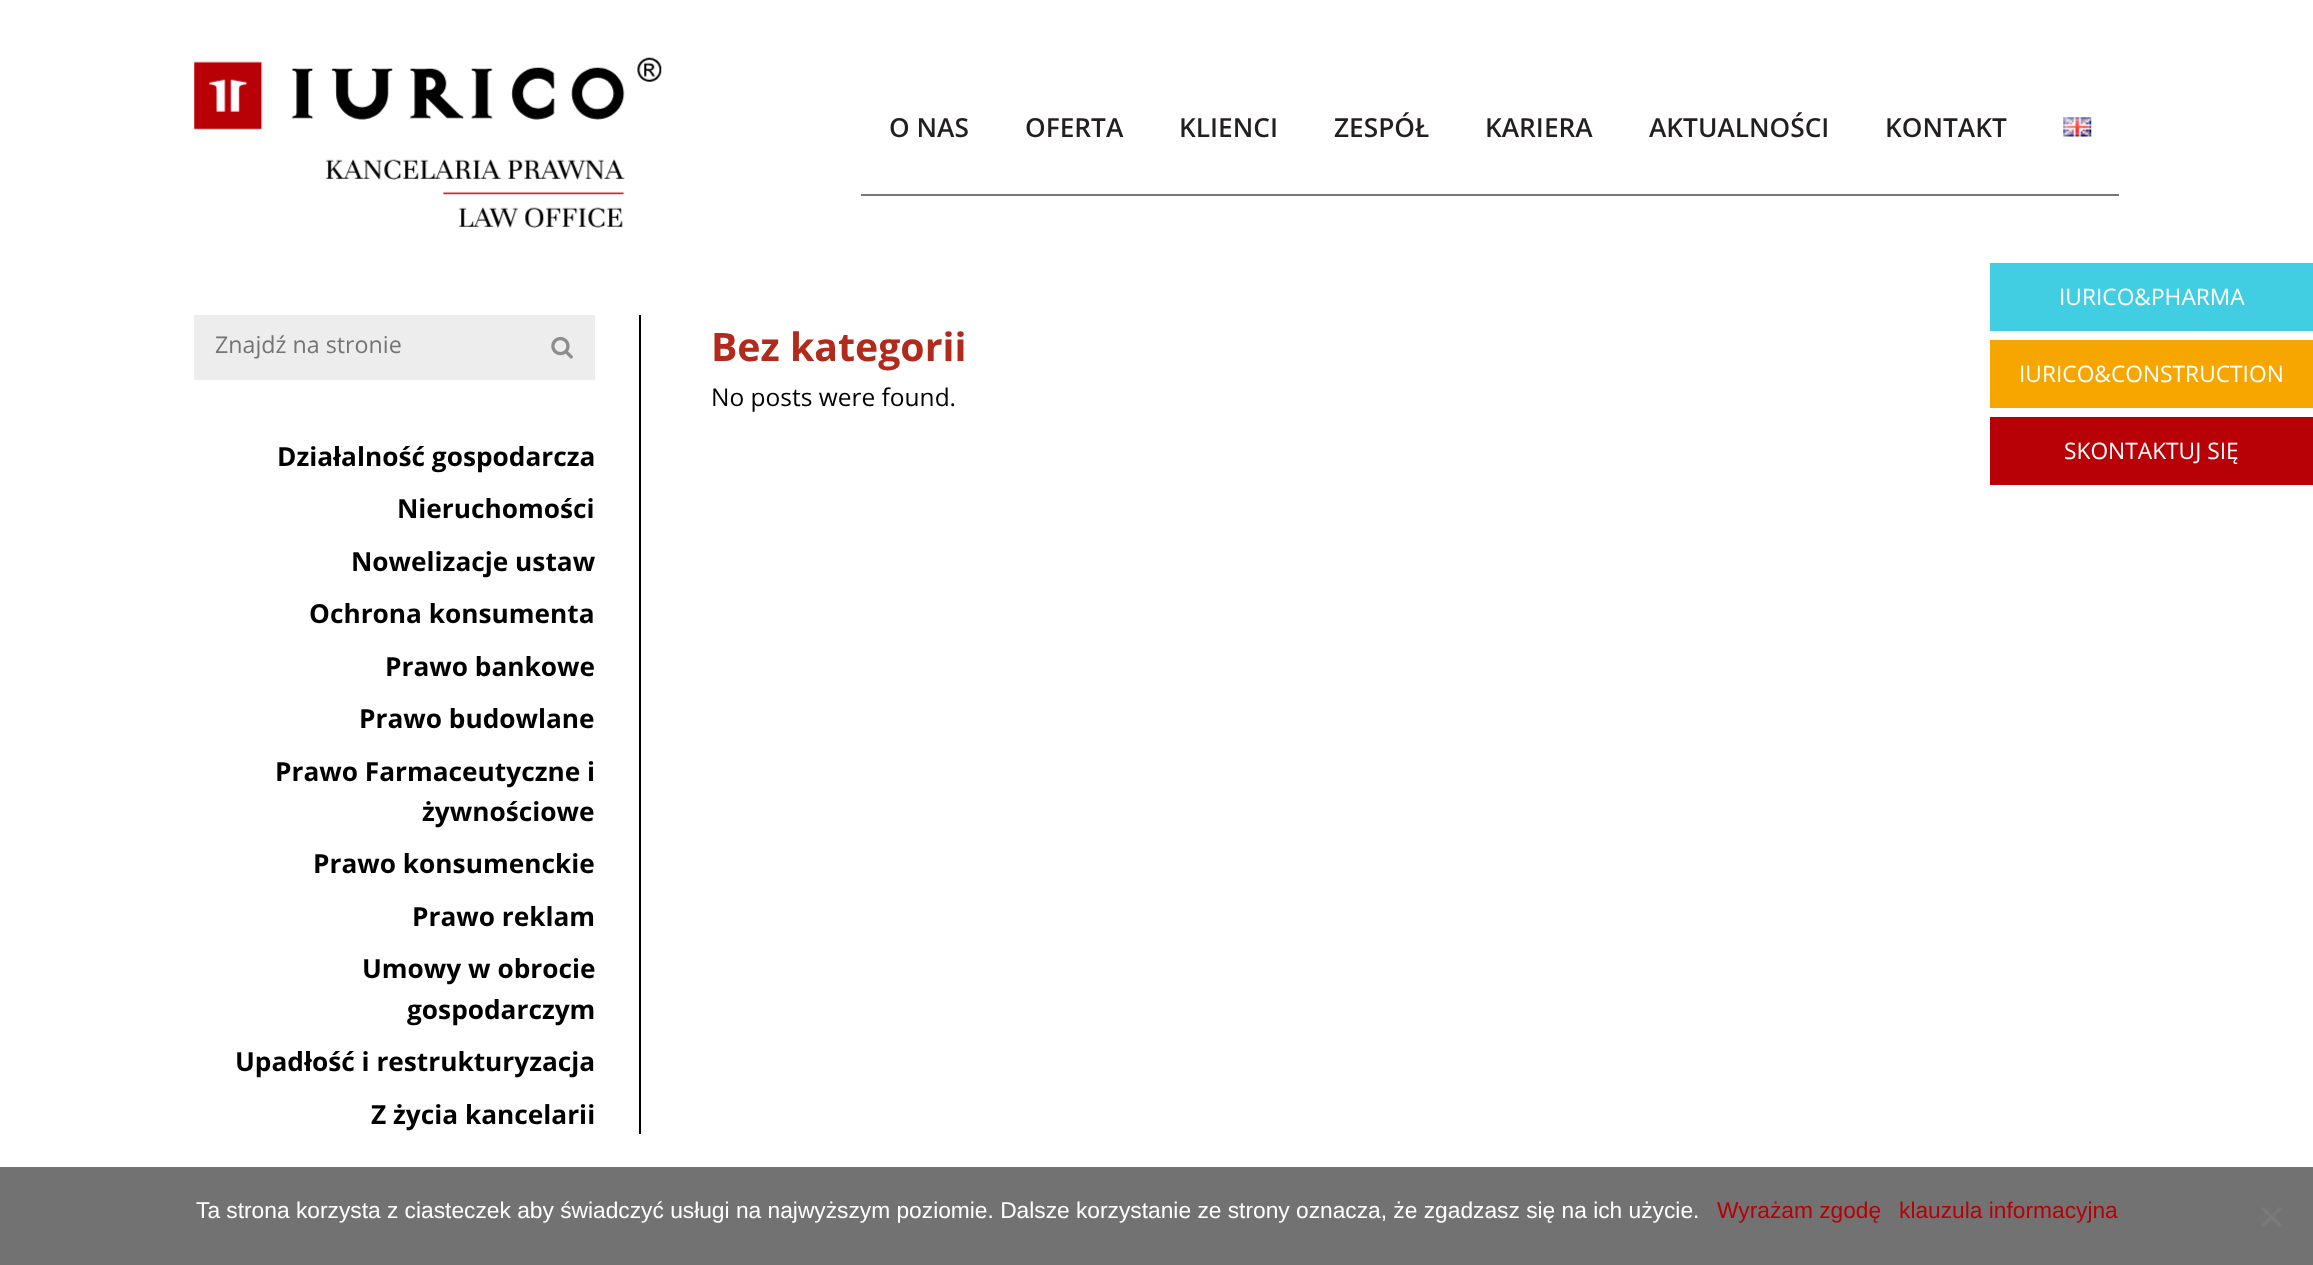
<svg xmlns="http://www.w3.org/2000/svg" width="2313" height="1265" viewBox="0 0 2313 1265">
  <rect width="100%" height="100%" fill="rgb(255,255,255)"/>
  <image x="194" y="57" width="468" height="171" href="pic1.png"/>
  <rect x="861" y="194" width="1258" height="2" fill="rgb(119,119,119)"/>
  <g font-family="Open Sans" font-size="26.25" font-weight="600" fill="rgb(35,31,32)">
    <text x="889" y="137">O NAS</text>
    <text x="1025" y="137">OFERTA</text>
    <text x="1179" y="137">KLIENCI</text>
    <text x="1334" y="137">ZESPÓŁ</text>
    <text x="1485" y="137">KARIERA</text>
    <text x="1649" y="137">AKTUALNOŚCI</text>
    <text x="1885" y="137">KONTAKT</text>
  </g>
  <image x="2063" y="117" width="29" height="20" href="pic2.png"/>
  <rect x="1990" y="263" width="323" height="68" fill="rgb(65,206,226)"/>
  <text x="2059" y="305" font-family="Open Sans" font-size="22.75" fill="rgb(255,255,255)">IURICO&amp;PHARMA</text>
  <rect x="1990" y="340" width="323" height="68" fill="rgb(247,166,0)"/>
  <text x="2019" y="382" font-family="Open Sans" font-size="22.75" fill="rgb(255,255,255)">IURICO&amp;CONSTRUCTION</text>
  <rect x="1990" y="417" width="323" height="68" fill="rgb(184,0,7)"/>
  <text x="2064" y="459" font-family="Open Sans" font-size="22.75" fill="rgb(255,255,255)">SKONTAKTUJ SIĘ</text>
  <rect x="639" y="315" width="2" height="819" fill="rgb(0,0,0)"/>
  <rect x="194" y="315" width="401" height="65" fill="rgb(237,237,237)"/>
  <text x="215" y="353" font-family="Open Sans" font-size="23.25" fill="rgb(117,117,117)">Znajdź na stronie</text>
  <image x="551" y="336" width="22" height="23" href="pic3.png"/>
  <g font-family="Open Sans" font-size="26.25" font-weight="bold" fill="rgb(0,0,0)">
    <text x="277" y="466">Działalność gospodarcza</text>
    <text x="397" y="518">Nieruchomości</text>
    <text x="351" y="571">Nowelizacje ustaw</text>
    <text x="309" y="623">Ochrona konsumenta</text>
    <text x="385" y="676">Prawo bankowe</text>
    <text x="359" y="728">Prawo budowlane</text>
    <text x="275" y="781">Prawo Farmaceutyczne i</text>
    <text x="422" y="821">żywnościowe</text>
    <text x="313" y="873">Prawo konsumenckie</text>
    <text x="412" y="926">Prawo reklam</text>
    <text x="362" y="978">Umowy w obrocie</text>
    <text x="407" y="1019">gospodarczym</text>
    <text x="235" y="1071">Upadłość i restrukturyzacja</text>
    <text x="371" y="1124">Z życia kancelarii</text>
  </g>
  <text x="711" y="361" font-family="Open Sans" font-size="39.25" font-weight="bold" fill="rgb(177,42,28)">Bez kategorii</text>
  <text x="711" y="406" font-family="Open Sans" font-size="24.5" fill="rgb(0,0,0)">No posts were found.</text>
  <rect x="0" y="1167" width="2313" height="98" fill="rgb(114,114,114)"/>
  <text x="196" y="1218" font-family="Liberation Sans" font-size="22.75" fill="rgb(255,255,255)">Ta strona korzysta z ciasteczek aby świadczyć usługi na najwyższym poziomie. Dalsze korzystanie ze strony oznacza, że zgadzasz się na ich użycie.</text>
  <g font-family="Liberation Sans" font-size="22.75" fill="rgb(184,0,7)">
    <text x="1717" y="1218">Wyrażam zgodę</text>
    <text x="1899" y="1218">klauzula informacyjna</text>
  </g>
  <path d="M2279.5 1206.5L2282 1209L2263.5 1227.5L2261 1225Z" fill="rgb(121,121,121)"/>
  <path d="M2261 1209L2263.5 1206.5L2282 1225L2279.5 1227.5Z" fill="rgb(121,121,121)"/>
</svg>
